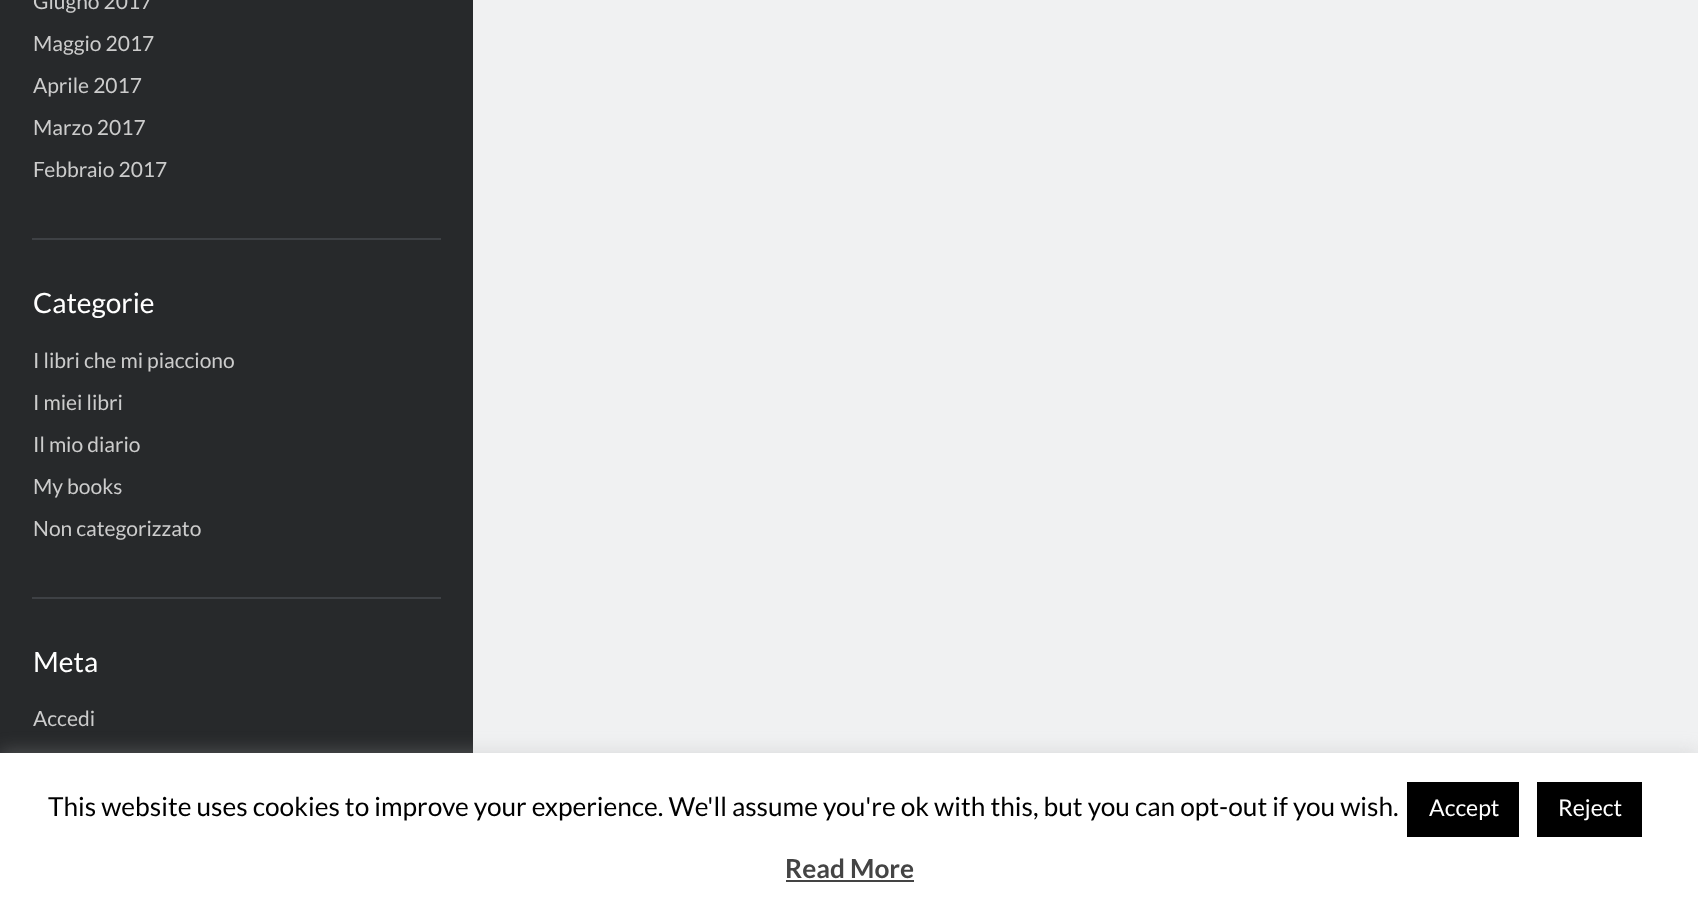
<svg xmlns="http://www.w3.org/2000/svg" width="1698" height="908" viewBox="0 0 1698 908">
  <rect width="100%" height="100%" fill="rgb(39,41,43)"/>
  <g font-family="Lato" font-size="21" fill="rgb(204,204,204)">
    <text x="33" y="9">Giugno 2017</text>
    <text x="33" y="51">Maggio 2017</text>
    <text x="33" y="93">Aprile 2017</text>
    <text x="33" y="135">Marzo 2017</text>
    <text x="33" y="177">Febbraio 2017</text>
  </g>
  <rect x="32" y="238" width="409" height="2" fill="rgb(62,65,69)"/>
  <text x="33" y="313" font-family="Lato" font-size="28" fill="rgb(255,255,255)">Categorie</text>
  <g font-family="Lato" font-size="21" fill="rgb(204,204,204)">
    <text x="33" y="368">I libri che mi piacciono</text>
    <text x="33" y="410">I miei libri</text>
    <text x="33" y="452">Il mio diario</text>
    <text x="33" y="494">My books</text>
    <text x="33" y="536">Non categorizzato</text>
  </g>
  <rect x="32" y="597" width="409" height="2" fill="rgb(62,65,69)"/>
  <text x="33" y="672" font-family="Lato" font-size="28" fill="rgb(255,255,255)">Meta</text>
  <text x="33" y="726" font-family="Lato" font-size="21" fill="rgb(204,204,204)">Accedi</text>
  <rect x="473" y="0" width="1225" height="753" fill="rgb(240,241,242)"/>
  <rect x="0" y="751" width="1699" height="156" fill="rgba(172,171,171,0.3)" filter="blur(9px)"/>
  <rect x="0" y="753" width="1698" height="155" fill="rgb(255,255,255)"/>
  <text x="48" y="816" font-family="Lato" font-size="26.25" fill="rgb(0,0,0)">This website uses cookies to improve your experience. We'll assume you're ok with this, but you can opt-out if you wish.</text>
  <rect x="1407" y="782" width="112" height="55" fill="rgb(0,0,0)"/>
  <text x="1429" y="816" font-family="Lato" font-size="23" fill="rgb(255,255,255)">Accept</text>
  <rect x="1537" y="782" width="105" height="55" fill="rgb(0,0,0)"/>
  <text x="1558" y="816" font-family="Lato" font-size="23" fill="rgb(255,255,255)">Reject</text>
  <text x="785" y="878" font-family="Lato" font-size="26.25" font-weight="bold" fill="rgb(68,68,68)">Read More</text>
  <rect x="786" y="880" width="128" height="2" fill="rgb(68,68,68)"/>
</svg>
